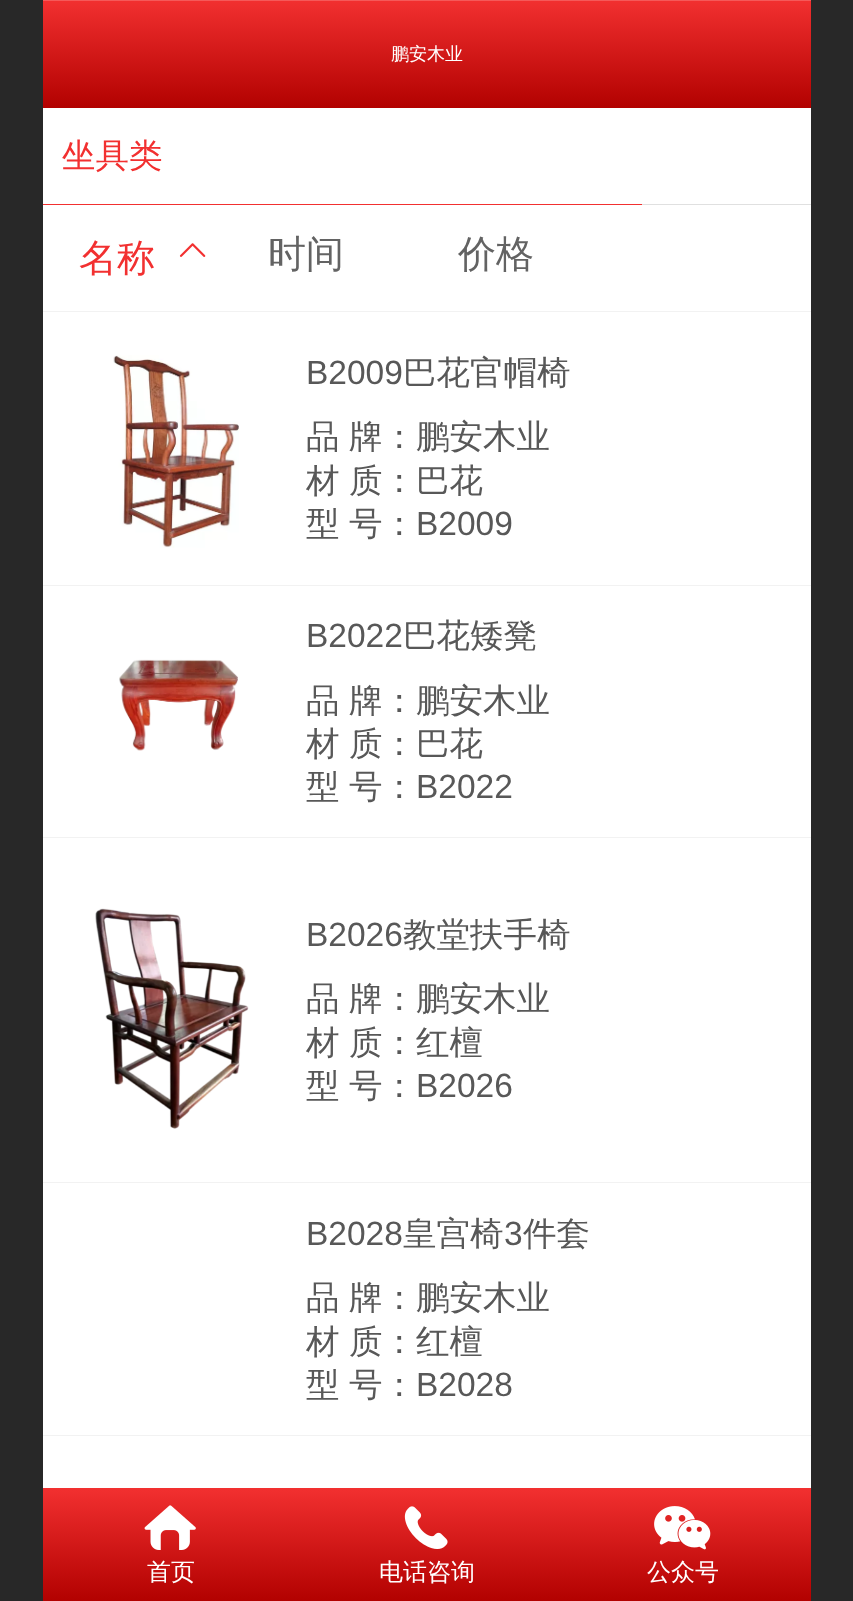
<svg xmlns="http://www.w3.org/2000/svg" width="853" height="1601" viewBox="0 0 853 1601">
  <defs>
    <linearGradient id="g1" gradientUnits="userSpaceOnUse" x1="43" y1="108" x2="43" y2="0"><stop offset="0" stop-color="rgb(178,1,0)"/><stop offset="1" stop-color="rgb(242,48,48)"/></linearGradient>
    <linearGradient id="g2" gradientUnits="userSpaceOnUse" x1="43" y1="1601" x2="43" y2="1488"><stop offset="0" stop-color="rgb(178,1,0)"/><stop offset="1" stop-color="rgb(242,48,48)"/></linearGradient>
  </defs>
  <rect width="100%" height="100%" fill="rgb(255,255,255)"/>
  <rect x="0" y="0" width="43" height="1601" fill="rgb(40,40,40)"/>
  <rect x="43" y="1" width="768" height="107" fill="url(#g1)"/>
  <rect x="43" y="0" width="768" height="1" fill="rgb(245,89,89)"/>
  <text x="391" y="60" font-family="WenQuanYi Zen Hei" font-size="18" font-weight="500" fill="rgb(255,255,255)">鹏安木业</text>
  <rect x="642" y="204" width="169" height="1" fill="rgb(224,224,224)"/>
  <rect x="43" y="204" width="599" height="1" fill="rgb(242,48,48)"/>
  <text x="62" y="167" font-family="WenQuanYi Zen Hei" font-size="33.5" font-weight="500" fill="rgb(242,48,48)">坐具类</text>
  <text x="79" y="271" font-family="WenQuanYi Zen Hei" font-size="38" font-weight="500" fill="rgb(242,48,48)">名称</text>
  <image x="179" y="243" width="27" height="14" href="pic1.png"/>
  <g font-family="WenQuanYi Zen Hei" font-size="38" font-weight="500" fill="rgb(99,99,99)">
    <text x="268" y="267">时间</text>
    <text x="458" y="267">价格</text>
  </g>
  <rect x="43" y="311" width="768" height="1" fill="rgb(242,242,242)"/>
  <image x="113" y="355" width="126" height="193" href="pic2.png"/>
  <text x="306" y="384" font-family="Liberation Sans" font-size="33.5" fill="rgb(88,88,88)">B2009</text>
  <g font-family="WenQuanYi Zen Hei" font-size="33.5" font-weight="500" fill="rgb(88,88,88)">
    <text x="403" y="384">巴花官帽椅</text>
    <text x="306" y="448">品</text>
    <text x="349" y="448">牌：鹏安木业</text>
    <text x="306" y="492">材</text>
    <text x="349" y="492">质：巴花</text>
    <text x="306" y="535">型</text>
    <text x="349" y="535">号：</text>
  </g>
  <text x="416" y="535" font-family="Liberation Sans" font-size="33.5" fill="rgb(88,88,88)">B2009</text>
  <rect x="43" y="585" width="768" height="1" fill="rgb(242,242,242)"/>
  <image x="119" y="659" width="119" height="92" href="pic3.png"/>
  <text x="306" y="647" font-family="Liberation Sans" font-size="33.5" fill="rgb(88,88,88)">B2022</text>
  <g font-family="WenQuanYi Zen Hei" font-size="33.5" font-weight="500" fill="rgb(88,88,88)">
    <text x="403" y="647">巴花矮凳</text>
    <text x="306" y="712">品</text>
    <text x="349" y="712">牌：鹏安木业</text>
    <text x="306" y="755">材</text>
    <text x="349" y="755">质：巴花</text>
    <text x="306" y="798">型</text>
    <text x="349" y="798">号：</text>
  </g>
  <text x="416" y="798" font-family="Liberation Sans" font-size="33.5" fill="rgb(88,88,88)">B2022</text>
  <rect x="43" y="837" width="768" height="1" fill="rgb(242,242,242)"/>
  <image x="95" y="908" width="154" height="221" href="pic4.png"/>
  <text x="306" y="946" font-family="Liberation Sans" font-size="33.5" fill="rgb(88,88,88)">B2026</text>
  <g font-family="WenQuanYi Zen Hei" font-size="33.5" font-weight="500" fill="rgb(88,88,88)">
    <text x="403" y="946">教堂扶手椅</text>
    <text x="306" y="1010">品</text>
    <text x="349" y="1010">牌：鹏安木业</text>
    <text x="306" y="1054">材</text>
    <text x="349" y="1054">质：红檀</text>
    <text x="306" y="1097">型</text>
    <text x="349" y="1097">号：</text>
  </g>
  <text x="416" y="1097" font-family="Liberation Sans" font-size="33.5" fill="rgb(88,88,88)">B2026</text>
  <rect x="43" y="1182" width="768" height="1" fill="rgb(242,242,242)"/>
  <text x="306" y="1245" font-family="Liberation Sans" font-size="33.5" fill="rgb(88,88,88)">B2028</text>
  <text x="403" y="1245" font-family="WenQuanYi Zen Hei" font-size="33.5" font-weight="500" fill="rgb(88,88,88)">皇宫椅</text>
  <text x="504" y="1245" font-family="Liberation Sans" font-size="33.5" fill="rgb(88,88,88)">3</text>
  <g font-family="WenQuanYi Zen Hei" font-size="33.5" font-weight="500" fill="rgb(88,88,88)">
    <text x="523" y="1245">件套</text>
    <text x="306" y="1309">品</text>
    <text x="349" y="1309">牌：鹏安木业</text>
    <text x="306" y="1353">材</text>
    <text x="349" y="1353">质：红檀</text>
    <text x="306" y="1396">型</text>
    <text x="349" y="1396">号：</text>
  </g>
  <text x="416" y="1396" font-family="Liberation Sans" font-size="33.5" fill="rgb(88,88,88)">B2028</text>
  <rect x="43" y="1435" width="768" height="1" fill="rgb(242,242,242)"/>
  <rect x="43" y="1488" width="768" height="113" fill="url(#g2)"/>
  <image x="144" y="1505" width="52" height="45" href="pic5.png"/>
  <text x="147" y="1580" font-family="WenQuanYi Zen Hei" font-size="24" font-weight="500" fill="rgb(255,255,255)">首页</text>
  <image x="404" y="1506" width="44" height="43" href="pic6.png"/>
  <text x="379" y="1580" font-family="WenQuanYi Zen Hei" font-size="24" font-weight="500" fill="rgb(255,255,255)">电话咨询</text>
  <image x="654" y="1506" width="57" height="44" href="pic7.png"/>
  <text x="647" y="1580" font-family="WenQuanYi Zen Hei" font-size="24" font-weight="500" fill="rgb(255,255,255)">公众号</text>
  <rect x="811" y="0" width="42" height="1601" fill="rgb(40,40,40)"/>
</svg>
